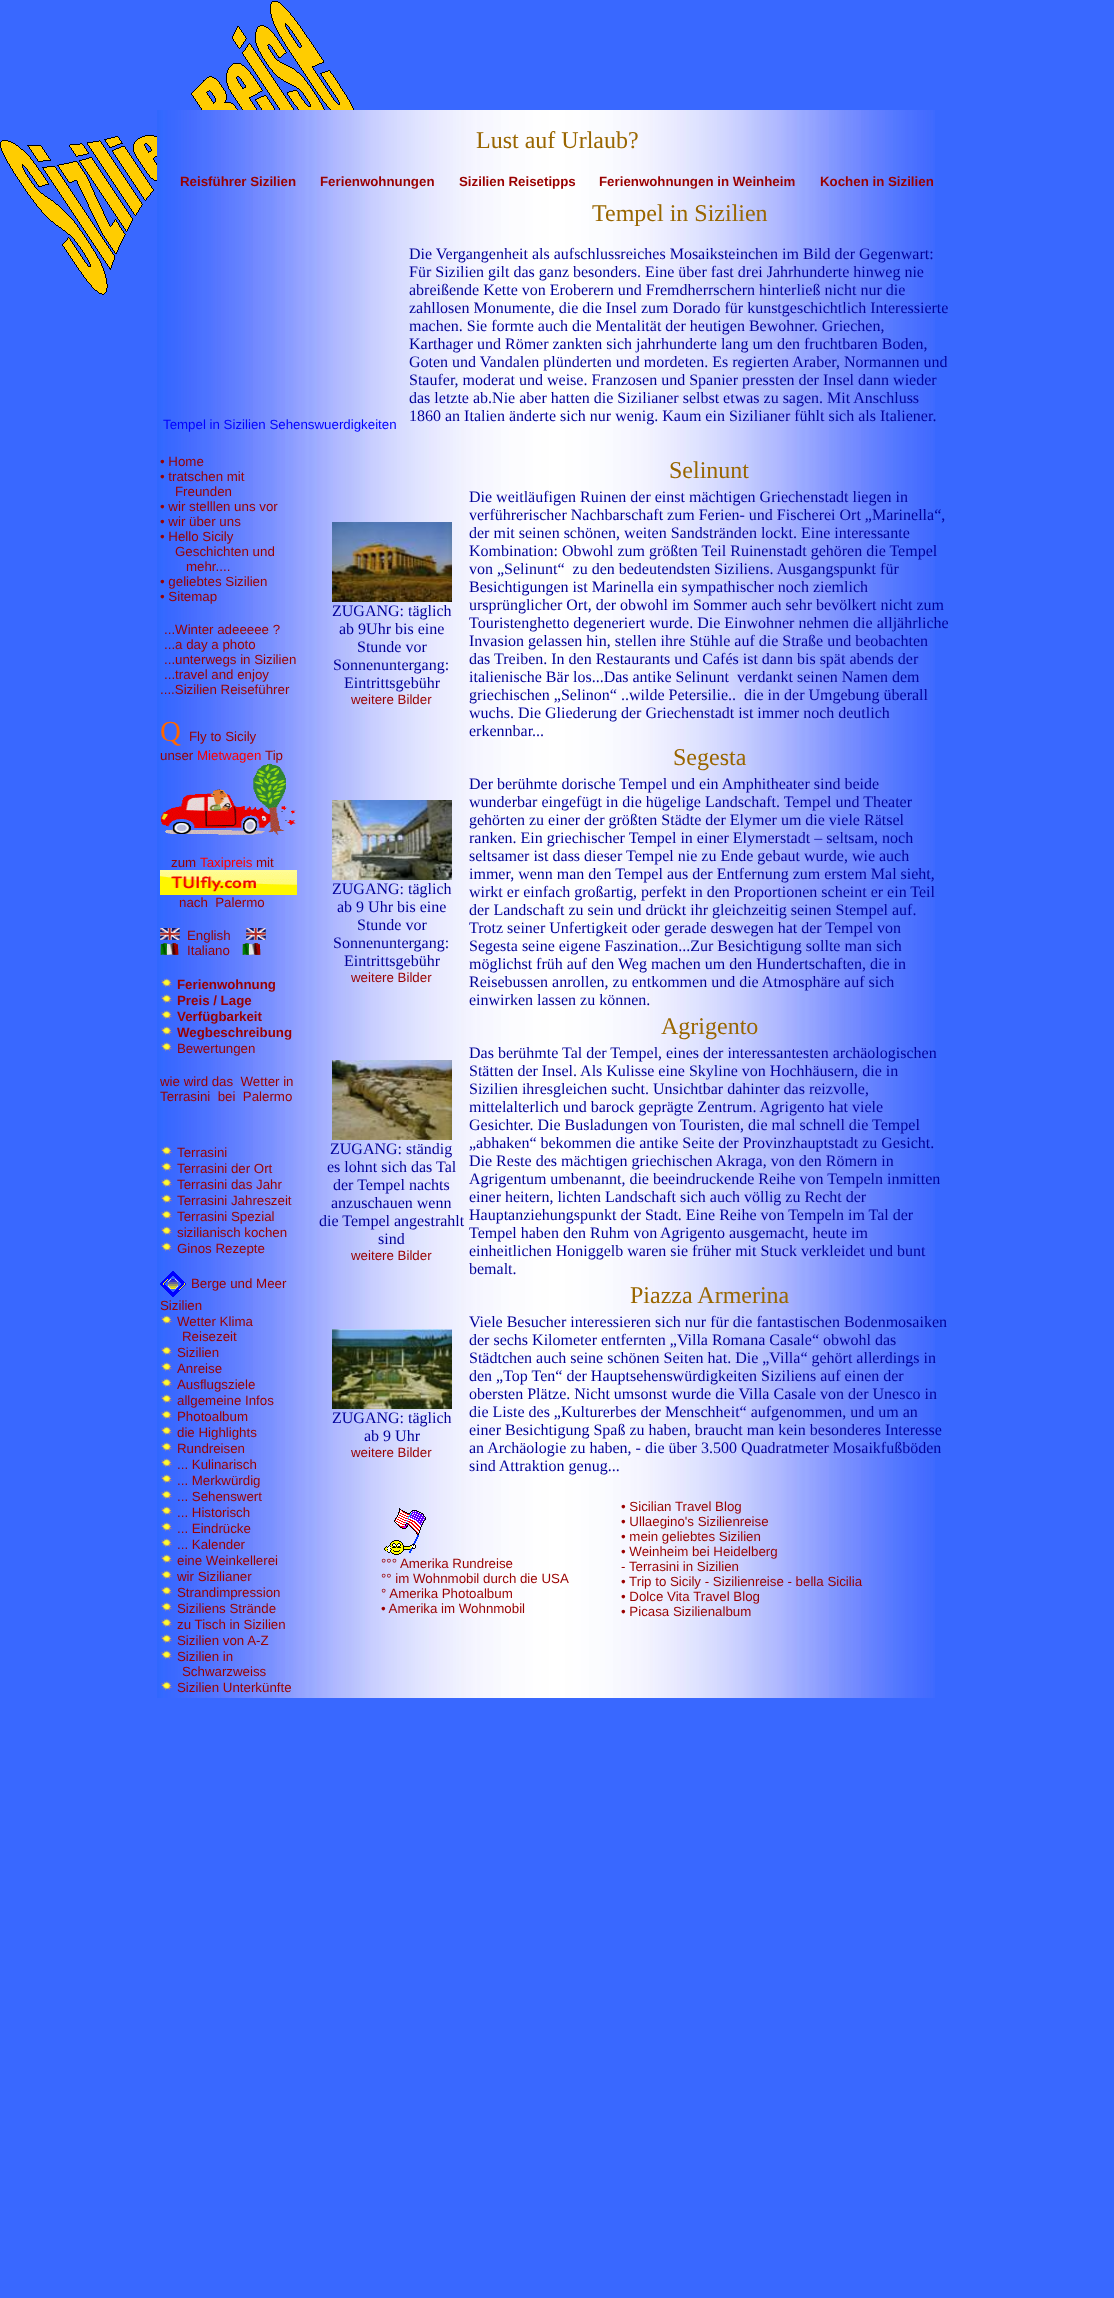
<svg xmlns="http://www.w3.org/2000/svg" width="1114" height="2298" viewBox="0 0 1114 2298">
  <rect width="100%" height="100%" fill="rgb(57,104,255)"/>
  <image x="0" y="1" width="354" height="294" href="pic1.png"/>
  <image x="157" y="110" width="778" height="341" href="pic2.png"/>
  <text x="476" y="148" font-family="Liberation Serif" font-size="24" fill="rgb(153,102,0)">Lust auf Urlaub?</text>
  <g font-family="Liberation Sans" font-size="13.3" font-weight="bold" fill="rgb(153,0,0)">
    <text x="180" y="186">Reisführer Sizilien</text>
    <text x="320" y="186">Ferienwohnungen</text>
    <text x="459" y="186">Sizilien Reisetipps</text>
    <text x="599" y="186">Ferienwohnungen in Weinheim</text>
    <text x="820" y="186">Kochen in Sizilien</text>
  </g>
  <text x="163" y="429" font-family="Liberation Sans" font-size="13.3" fill="rgb(0,0,255)">Tempel in Sizilien Sehenswuerdigkeiten</text>
  <text x="592" y="221" font-family="Liberation Serif" font-size="24" fill="rgb(153,102,0)">Tempel in Sizilien</text>
  <g font-family="Liberation Serif" font-size="16" fill="rgb(0,0,153)">
    <text>
      <tspan x="409" y="259">Die Vergangenheit als aufschlussreiches Mosaiksteinchen im Bild der Gegenwart:</tspan>
      <tspan x="409" y="277">Für Sizilien gilt das ganz besonders. Eine über fast drei Jahrhunderte hinweg nie</tspan>
      <tspan x="409" y="295">abreißende Kette von Eroberern und Fremdherrschern hinterließ nicht nur die</tspan>
      <tspan x="409" y="313">zahllosen Monumente, die die Insel zum Dorado für kunstgeschichtlich Interessierte</tspan>
      <tspan x="409" y="331">machen. Sie formte auch die Mentalität der heutigen Bewohner. Griechen,</tspan>
      <tspan x="409" y="349">Karthager und Römer zankten sich jahrhunderte lang um den fruchtbaren Boden,</tspan>
      <tspan x="409" y="367">Goten und Vandalen plünderten und mordeten. Es regierten Araber, Normannen und</tspan>
      <tspan x="409" y="385">Staufer, moderat und weise. Franzosen und Spanier pressten der Insel dann wieder</tspan>
      <tspan x="409" y="403">das letzte ab.Nie aber hatten die Sizilianer selbst etwas zu sagen. Mit Anschluss</tspan>
      <tspan x="409" y="421">1860 an Italien änderte sich nur wenig. Kaum ein Sizilianer fühlt sich als Italiener.</tspan>
    </text>
  </g>
  <image x="157" y="451" width="778" height="1247" href="pic3.png"/>
  <g font-family="Liberation Sans" font-size="13.3" fill="rgb(153,0,0)">
    <text>
      <tspan x="160" y="466">• Home</tspan>
      <tspan x="160" y="481">• tratschen mit</tspan>
    </text>
    <text x="175" y="496">Freunden</text>
    <text>
      <tspan x="160" y="511">• wir stelllen uns vor</tspan>
      <tspan x="160" y="526">• wir über uns</tspan>
      <tspan x="160" y="541">• Hello Sicily</tspan>
    </text>
    <text x="175" y="556">Geschichten und</text>
    <text x="186" y="571">mehr....</text>
    <text>
      <tspan x="160" y="586">• geliebtes Sizilien</tspan>
      <tspan x="160" y="601">• Sitemap</tspan>
    </text>
    <text>
      <tspan x="164" y="634">...Winter adeeeee ?</tspan>
      <tspan x="164" y="649">...a day a photo</tspan>
      <tspan x="164" y="664">...unterwegs in Sizilien</tspan>
      <tspan x="164" y="679">...travel and enjoy</tspan>
    </text>
    <text x="160" y="694">....Sizilien Reiseführer</text>
  </g>
  <text x="160" y="741" font-family="Liberation Serif" font-size="29" fill="rgb(255,102,0)">Q</text>
  <g font-family="Liberation Sans" font-size="13.3" fill="rgb(153,0,0)">
    <text x="189" y="741">Fly to Sicily</text>
    <text x="160" y="760">unser</text>
  </g>
  <text x="197" y="760" font-family="Liberation Sans" font-size="13.3" fill="rgb(255,0,0)">Mietwagen</text>
  <text x="265" y="760" font-family="Liberation Sans" font-size="13.3" fill="rgb(153,0,0)">Tip</text>
  <image x="160" y="763" width="136" height="73" href="pic4.png"/>
  <text x="171" y="867" font-family="Liberation Sans" font-size="13.3" fill="rgb(153,0,0)">zum</text>
  <text x="200" y="867" font-family="Liberation Sans" font-size="13.3" fill="rgb(255,0,0)">Taxipreis</text>
  <text x="256" y="867" font-family="Liberation Sans" font-size="13.3" fill="rgb(153,0,0)">mit</text>
  <image x="160" y="870" width="137" height="25" href="pic5.png"/>
  <text x="179" y="907" font-family="Liberation Sans" font-size="13.3" fill="rgb(153,0,0)" xml:space="preserve">nach  Palermo</text>
  <image x="160" y="928" width="20" height="12" href="pic6.png"/>
  <text x="187" y="940" font-family="Liberation Sans" font-size="13.3" fill="rgb(153,0,0)">English</text>
  <image x="246" y="928" width="20" height="12" href="pic6.png"/>
  <image x="160" y="943" width="19" height="12" href="pic7.png"/>
  <text x="187" y="955" font-family="Liberation Sans" font-size="13.3" fill="rgb(153,0,0)">Italiano</text>
  <image x="242" y="943" width="19" height="12" href="pic8.png"/>
  <image x="160" y="978" width="13" height="10" href="pic9.png"/>
  <text x="177" y="989" font-family="Liberation Sans" font-size="13.3" font-weight="bold" fill="rgb(153,0,0)">Ferienwohnung</text>
  <image x="160" y="994" width="13" height="10" href="pic9.png"/>
  <text x="177" y="1005" font-family="Liberation Sans" font-size="13.3" font-weight="bold" fill="rgb(153,0,0)">Preis / Lage</text>
  <image x="160" y="1010" width="13" height="10" href="pic9.png"/>
  <text x="177" y="1021" font-family="Liberation Sans" font-size="13.3" font-weight="bold" fill="rgb(153,0,0)">Verfügbarkeit</text>
  <image x="160" y="1026" width="13" height="10" href="pic9.png"/>
  <text x="177" y="1037" font-family="Liberation Sans" font-size="13.3" font-weight="bold" fill="rgb(153,0,0)">Wegbeschreibung</text>
  <image x="160" y="1042" width="13" height="10" href="pic10.png"/>
  <g font-family="Liberation Sans" font-size="13.3" fill="rgb(153,0,0)">
    <text x="177" y="1053">Bewertungen</text>
    <text xml:space="preserve"><tspan x="160" y="1086">wie wird das  Wetter in</tspan><tspan x="160" y="1101">Terrasini  bei  Palermo</tspan></text>
  </g>
  <image x="160" y="1146" width="13" height="10" href="pic9.png"/>
  <text x="177" y="1157" font-family="Liberation Sans" font-size="13.3" fill="rgb(153,0,0)">Terrasini</text>
  <image x="160" y="1162" width="13" height="10" href="pic9.png"/>
  <text x="177" y="1173" font-family="Liberation Sans" font-size="13.3" fill="rgb(153,0,0)">Terrasini der Ort</text>
  <image x="160" y="1178" width="13" height="10" href="pic10.png"/>
  <text x="177" y="1189" font-family="Liberation Sans" font-size="13.3" fill="rgb(153,0,0)">Terrasini das Jahr</text>
  <image x="160" y="1194" width="13" height="10" href="pic9.png"/>
  <text x="177" y="1205" font-family="Liberation Sans" font-size="13.3" fill="rgb(153,0,0)">Terrasini Jahreszeit</text>
  <image x="160" y="1210" width="13" height="10" href="pic10.png"/>
  <text x="177" y="1221" font-family="Liberation Sans" font-size="13.3" fill="rgb(153,0,0)">Terrasini Spezial</text>
  <image x="160" y="1226" width="13" height="10" href="pic9.png"/>
  <text x="177" y="1237" font-family="Liberation Sans" font-size="13.3" fill="rgb(153,0,0)">sizilianisch kochen</text>
  <image x="160" y="1242" width="13" height="10" href="pic9.png"/>
  <text x="177" y="1253" font-family="Liberation Sans" font-size="13.3" fill="rgb(153,0,0)">Ginos Rezepte</text>
  <image x="160" y="1271" width="26" height="26" href="pic11.png"/>
  <g font-family="Liberation Sans" font-size="13.3" fill="rgb(153,0,0)">
    <text x="191" y="1288">Berge und Meer</text>
    <text x="160" y="1310">Sizilien</text>
  </g>
  <image x="160" y="1315" width="13" height="10" href="pic10.png"/>
  <g font-family="Liberation Sans" font-size="13.3" fill="rgb(153,0,0)">
    <text x="177" y="1326">Wetter Klima</text>
    <text x="182" y="1341">Reisezeit</text>
  </g>
  <image x="160" y="1346" width="13" height="10" href="pic9.png"/>
  <text x="177" y="1357" font-family="Liberation Sans" font-size="13.3" fill="rgb(153,0,0)">Sizilien</text>
  <image x="160" y="1362" width="13" height="10" href="pic9.png"/>
  <text x="177" y="1373" font-family="Liberation Sans" font-size="13.3" fill="rgb(153,0,0)">Anreise</text>
  <image x="160" y="1378" width="13" height="10" href="pic9.png"/>
  <text x="177" y="1389" font-family="Liberation Sans" font-size="13.3" fill="rgb(153,0,0)">Ausflugsziele</text>
  <image x="160" y="1394" width="13" height="10" href="pic9.png"/>
  <text x="177" y="1405" font-family="Liberation Sans" font-size="13.3" fill="rgb(153,0,0)">allgemeine Infos</text>
  <image x="160" y="1410" width="13" height="10" href="pic9.png"/>
  <text x="177" y="1421" font-family="Liberation Sans" font-size="13.3" fill="rgb(153,0,0)">Photoalbum</text>
  <image x="160" y="1426" width="13" height="10" href="pic9.png"/>
  <text x="177" y="1437" font-family="Liberation Sans" font-size="13.3" fill="rgb(153,0,0)">die Highlights</text>
  <image x="160" y="1442" width="13" height="10" href="pic9.png"/>
  <text x="177" y="1453" font-family="Liberation Sans" font-size="13.3" fill="rgb(153,0,0)">Rundreisen</text>
  <image x="160" y="1458" width="13" height="10" href="pic9.png"/>
  <text x="177" y="1469" font-family="Liberation Sans" font-size="13.3" fill="rgb(153,0,0)">... Kulinarisch</text>
  <image x="160" y="1474" width="13" height="10" href="pic9.png"/>
  <text x="177" y="1485" font-family="Liberation Sans" font-size="13.3" fill="rgb(153,0,0)">... Merkwürdig</text>
  <image x="160" y="1490" width="13" height="10" href="pic9.png"/>
  <text x="177" y="1501" font-family="Liberation Sans" font-size="13.3" fill="rgb(153,0,0)">... Sehenswert</text>
  <image x="160" y="1506" width="13" height="10" href="pic9.png"/>
  <text x="177" y="1517" font-family="Liberation Sans" font-size="13.3" fill="rgb(153,0,0)">... Historisch</text>
  <image x="160" y="1522" width="13" height="10" href="pic9.png"/>
  <text x="177" y="1533" font-family="Liberation Sans" font-size="13.3" fill="rgb(153,0,0)">... Eindrücke</text>
  <image x="160" y="1538" width="13" height="10" href="pic10.png"/>
  <text x="177" y="1549" font-family="Liberation Sans" font-size="13.3" fill="rgb(153,0,0)">... Kalender</text>
  <image x="160" y="1554" width="13" height="10" href="pic9.png"/>
  <text x="177" y="1565" font-family="Liberation Sans" font-size="13.3" fill="rgb(153,0,0)">eine Weinkellerei</text>
  <image x="160" y="1570" width="13" height="10" href="pic9.png"/>
  <text x="177" y="1581" font-family="Liberation Sans" font-size="13.3" fill="rgb(153,0,0)">wir Sizilianer</text>
  <image x="160" y="1586" width="13" height="10" href="pic9.png"/>
  <text x="177" y="1597" font-family="Liberation Sans" font-size="13.3" fill="rgb(153,0,0)">Strandimpression</text>
  <image x="160" y="1602" width="13" height="10" href="pic9.png"/>
  <text x="177" y="1613" font-family="Liberation Sans" font-size="13.3" fill="rgb(153,0,0)">Siziliens Strände</text>
  <image x="160" y="1618" width="13" height="10" href="pic9.png"/>
  <text x="177" y="1629" font-family="Liberation Sans" font-size="13.3" fill="rgb(153,0,0)">zu Tisch in Sizilien</text>
  <image x="160" y="1634" width="13" height="10" href="pic9.png"/>
  <text x="177" y="1645" font-family="Liberation Sans" font-size="13.3" fill="rgb(153,0,0)">Sizilien von A-Z</text>
  <image x="160" y="1650" width="13" height="10" href="pic9.png"/>
  <g font-family="Liberation Sans" font-size="13.3" fill="rgb(153,0,0)">
    <text x="177" y="1661">Sizilien in</text>
    <text x="182" y="1676">Schwarzweiss</text>
  </g>
  <image x="160" y="1681" width="13" height="10" href="pic9.png"/>
  <text x="177" y="1692" font-family="Liberation Sans" font-size="13.3" fill="rgb(153,0,0)">Sizilien Unterkünfte</text>
  <text x="669" y="478" font-family="Liberation Serif" font-size="24" fill="rgb(153,102,0)">Selinunt</text>
  <image x="332" y="522" width="120" height="80" href="pic12.png"/>
  <g font-family="Liberation Serif" font-size="16" fill="rgb(0,0,153)">
    <text x="332" y="616">ZUGANG: täglich</text>
    <text x="339" y="634">ab 9Uhr bis eine</text>
    <text x="357" y="652">Stunde vor</text>
    <text x="333" y="670">Sonnenuntergang:</text>
    <text x="344" y="688">Eintrittsgebühr</text>
  </g>
  <text x="351" y="704" font-family="Liberation Sans" font-size="13.3" fill="rgb(153,0,0)">weitere Bilder</text>
  <g font-family="Liberation Serif" font-size="16" fill="rgb(0,0,153)">
    <text xml:space="preserve"><tspan x="469" y="502">Die weitläufigen Ruinen der einst mächtigen Griechenstadt liegen in</tspan><tspan x="469" y="520">verführerischer Nachbarschaft zum Ferien- und Fischerei Ort „Marinella“,</tspan><tspan x="469" y="538">der mit seinen schönen, weiten Sandstränden lockt. Eine interessante</tspan><tspan x="469" y="556">Kombination: Obwohl zum größten Teil Ruinenstadt gehören die Tempel</tspan><tspan x="469" y="574">von „Selinunt“  zu den bedeutendsten Siziliens. Ausgangspunkt für</tspan><tspan x="469" y="592">Besichtigungen ist Marinella ein sympathischer noch ziemlich</tspan><tspan x="469" y="610">ursprünglicher Ort, der obwohl im Sommer auch sehr bevölkert nicht zum</tspan><tspan x="469" y="628">Touristenghetto degeneriert wurde. Die Einwohner nehmen die alljährliche</tspan><tspan x="469" y="646">Invasion gelassen hin, stellen ihre Stühle auf die Straße und beobachten</tspan><tspan x="469" y="664">das Treiben. In den Restaurants und Cafés ist dann bis spät abends der</tspan><tspan x="469" y="682">italienische Bär los...Das antike Selinunt  verdankt seinen Namen dem</tspan><tspan x="469" y="700">griechischen „Selinon“ ..wilde Petersilie..  die in der Umgebung überall</tspan><tspan x="469" y="718">wuchs. Die Gliederung der Griechenstadt ist immer noch deutlich</tspan><tspan x="469" y="736">erkennbar...</tspan></text>
  </g>
  <text x="673" y="765" font-family="Liberation Serif" font-size="24" fill="rgb(153,102,0)">Segesta</text>
  <image x="332" y="800" width="120" height="80" href="pic13.png"/>
  <g font-family="Liberation Serif" font-size="16" fill="rgb(0,0,153)">
    <text x="332" y="894">ZUGANG: täglich</text>
    <text x="337" y="912">ab 9 Uhr bis eine</text>
    <text x="357" y="930">Stunde vor</text>
    <text x="333" y="948">Sonnenuntergang:</text>
    <text x="344" y="966">Eintrittsgebühr</text>
  </g>
  <text x="351" y="982" font-family="Liberation Sans" font-size="13.3" fill="rgb(153,0,0)">weitere Bilder</text>
  <g font-family="Liberation Serif" font-size="16" fill="rgb(0,0,153)">
    <text>
      <tspan x="469" y="789">Der berühmte dorische Tempel und ein Amphitheater sind beide</tspan>
      <tspan x="469" y="807">wunderbar eingefügt in die hügelige Landschaft. Tempel und Theater</tspan>
      <tspan x="469" y="825">gehörten zu einer der größten Städte der Elymer um die viele Rätsel</tspan>
      <tspan x="469" y="843">ranken. Ein griechischer Tempel in einer Elymerstadt – seltsam, noch</tspan>
      <tspan x="469" y="861">seltsamer ist dass dieser Tempel nie zu Ende gebaut wurde, wie auch</tspan>
      <tspan x="469" y="879">immer, wenn man den Tempel aus der Entfernung zum erstem Mal sieht,</tspan>
      <tspan x="469" y="897">wirkt er einfach großartig, perfekt in den Proportionen scheint er ein Teil</tspan>
      <tspan x="469" y="915">der Landschaft zu sein und drückt ihr gleichzeitig seinen Stempel auf.</tspan>
      <tspan x="469" y="933">Trotz seiner Unfertigkeit oder gerade deswegen hat der Tempel von</tspan>
      <tspan x="469" y="951">Segesta seine eigene Faszination...Zur Besichtigung sollte man sich</tspan>
      <tspan x="469" y="969">möglichst früh auf den Weg machen um den Hundertschaften, die in</tspan>
      <tspan x="469" y="987">Reisebussen anrollen, zu entkommen und die Atmosphäre auf sich</tspan>
      <tspan x="469" y="1005">einwirken lassen zu können.</tspan>
    </text>
  </g>
  <text x="661" y="1034" font-family="Liberation Serif" font-size="24" fill="rgb(153,102,0)">Agrigento</text>
  <image x="332" y="1060" width="120" height="80" href="pic14.png"/>
  <g font-family="Liberation Serif" font-size="16" fill="rgb(0,0,153)">
    <text x="330" y="1154">ZUGANG: ständig</text>
    <text x="327" y="1172">es lohnt sich das Tal</text>
    <text x="333" y="1190">der Tempel nachts</text>
    <text x="331" y="1208">anzuschauen wenn</text>
    <text x="319" y="1226">die Tempel angestrahlt</text>
    <text x="378" y="1244">sind</text>
  </g>
  <text x="351" y="1260" font-family="Liberation Sans" font-size="13.3" fill="rgb(153,0,0)">weitere Bilder</text>
  <g font-family="Liberation Serif" font-size="16" fill="rgb(0,0,153)">
    <text>
      <tspan x="469" y="1058">Das berühmte Tal der Tempel, eines der interessantesten archäologischen</tspan>
      <tspan x="469" y="1076">Stätten der Insel. Als Kulisse eine Skyline von Hochhäusern, die in</tspan>
      <tspan x="469" y="1094">Sizilien ihresgleichen sucht. Unsichtbar dahinter das reizvolle,</tspan>
      <tspan x="469" y="1112">mittelalterlich und barock geprägte Zentrum. Agrigento hat viele</tspan>
      <tspan x="469" y="1130">Gesichter. Die Busladungen von Touristen, die mal schnell die Tempel</tspan>
      <tspan x="469" y="1148">„abhaken“ bekommen die antike Seite der Provinzhauptstadt zu Gesicht.</tspan>
      <tspan x="469" y="1166">Die Reste des mächtigen griechischen Akraga, von den Römern in</tspan>
      <tspan x="469" y="1184">Agrigentum umbenannt, die beeindruckende Reihe von Tempeln inmitten</tspan>
      <tspan x="469" y="1202">einer heitern, lichten Landschaft sich auch völlig zu Recht der</tspan>
      <tspan x="469" y="1220">Hauptanziehungspunkt der Stadt. Eine Reihe von Tempeln im Tal der</tspan>
      <tspan x="469" y="1238">Tempel haben den Ruhm von</tspan>
    </text>
    <text x="660" y="1238">Agrigento ausgemacht, heute im</text>
    <text>
      <tspan x="469" y="1256">einheitlichen Honiggelb waren sie früher mit Stuck verkleidet und bunt</tspan>
      <tspan x="469" y="1274">bemalt.</tspan>
    </text>
  </g>
  <text x="630" y="1303" font-family="Liberation Serif" font-size="24" fill="rgb(153,102,0)">Piazza Armerina</text>
  <image x="332" y="1329" width="120" height="80" href="pic15.png"/>
  <g font-family="Liberation Serif" font-size="16" fill="rgb(0,0,153)">
    <text x="332" y="1423">ZUGANG: täglich</text>
    <text x="364" y="1441">ab 9 Uhr</text>
  </g>
  <text x="351" y="1457" font-family="Liberation Sans" font-size="13.3" fill="rgb(153,0,0)">weitere Bilder</text>
  <g font-family="Liberation Serif" font-size="16" fill="rgb(0,0,153)">
    <text>
      <tspan x="469" y="1327">Viele Besucher interessieren sich nur für die fantastischen Bodenmosaiken</tspan>
      <tspan x="469" y="1345">der sechs Kilometer entfernten „Villa Romana Casale“ obwohl das</tspan>
      <tspan x="469" y="1363">Städtchen auch seine schönen Seiten hat. Die „Villa“ gehört allerdings in</tspan>
      <tspan x="469" y="1381">den „Top Ten“ der Hauptsehenswürdigkeiten Siziliens auf einen der</tspan>
      <tspan x="469" y="1399">obersten Plätze. Nicht umsonst wurde die Villa Casale von der Unesco in</tspan>
      <tspan x="469" y="1417">die Liste des „Kulturerbes der Menschheit“ aufgenommen, und um an</tspan>
      <tspan x="469" y="1435">einer Besichtigung Spaß zu haben, braucht man kein besonderes Interesse</tspan>
      <tspan x="469" y="1453">an Archäologie zu haben, - die über 3.500 Quadratmeter Mosaikfußböden</tspan>
      <tspan x="469" y="1471">sind Attraktion genug...</tspan>
    </text>
  </g>
  <image x="384" y="1508" width="42" height="47" href="pic16.png"/>
  <g font-family="Liberation Sans" font-size="13.3" fill="rgb(153,0,0)">
    <text>
      <tspan x="381" y="1568">°°° Amerika Rundreise</tspan>
      <tspan x="381" y="1583">°° im Wohnmobil durch die USA</tspan>
      <tspan x="381" y="1598">° Amerika Photoalbum</tspan>
      <tspan x="381" y="1613">• Amerika im Wohnmobil</tspan>
    </text>
    <text>
      <tspan x="621" y="1511">• Sicilian Travel Blog</tspan>
      <tspan x="621" y="1526">• Ullaegino's Sizilienreise</tspan>
      <tspan x="621" y="1541">• mein geliebtes Sizilien</tspan>
      <tspan x="621" y="1556">• Weinheim bei Heidelberg</tspan>
      <tspan x="621" y="1571">- Terrasini in Sizilien</tspan>
      <tspan x="621" y="1586">• Trip to Sicily - Sizilienreise - bella Sicilia</tspan>
      <tspan x="621" y="1601">• Dolce Vita Travel Blog</tspan>
      <tspan x="621" y="1616">• Picasa Sizilienalbum</tspan>
    </text>
  </g>
</svg>
